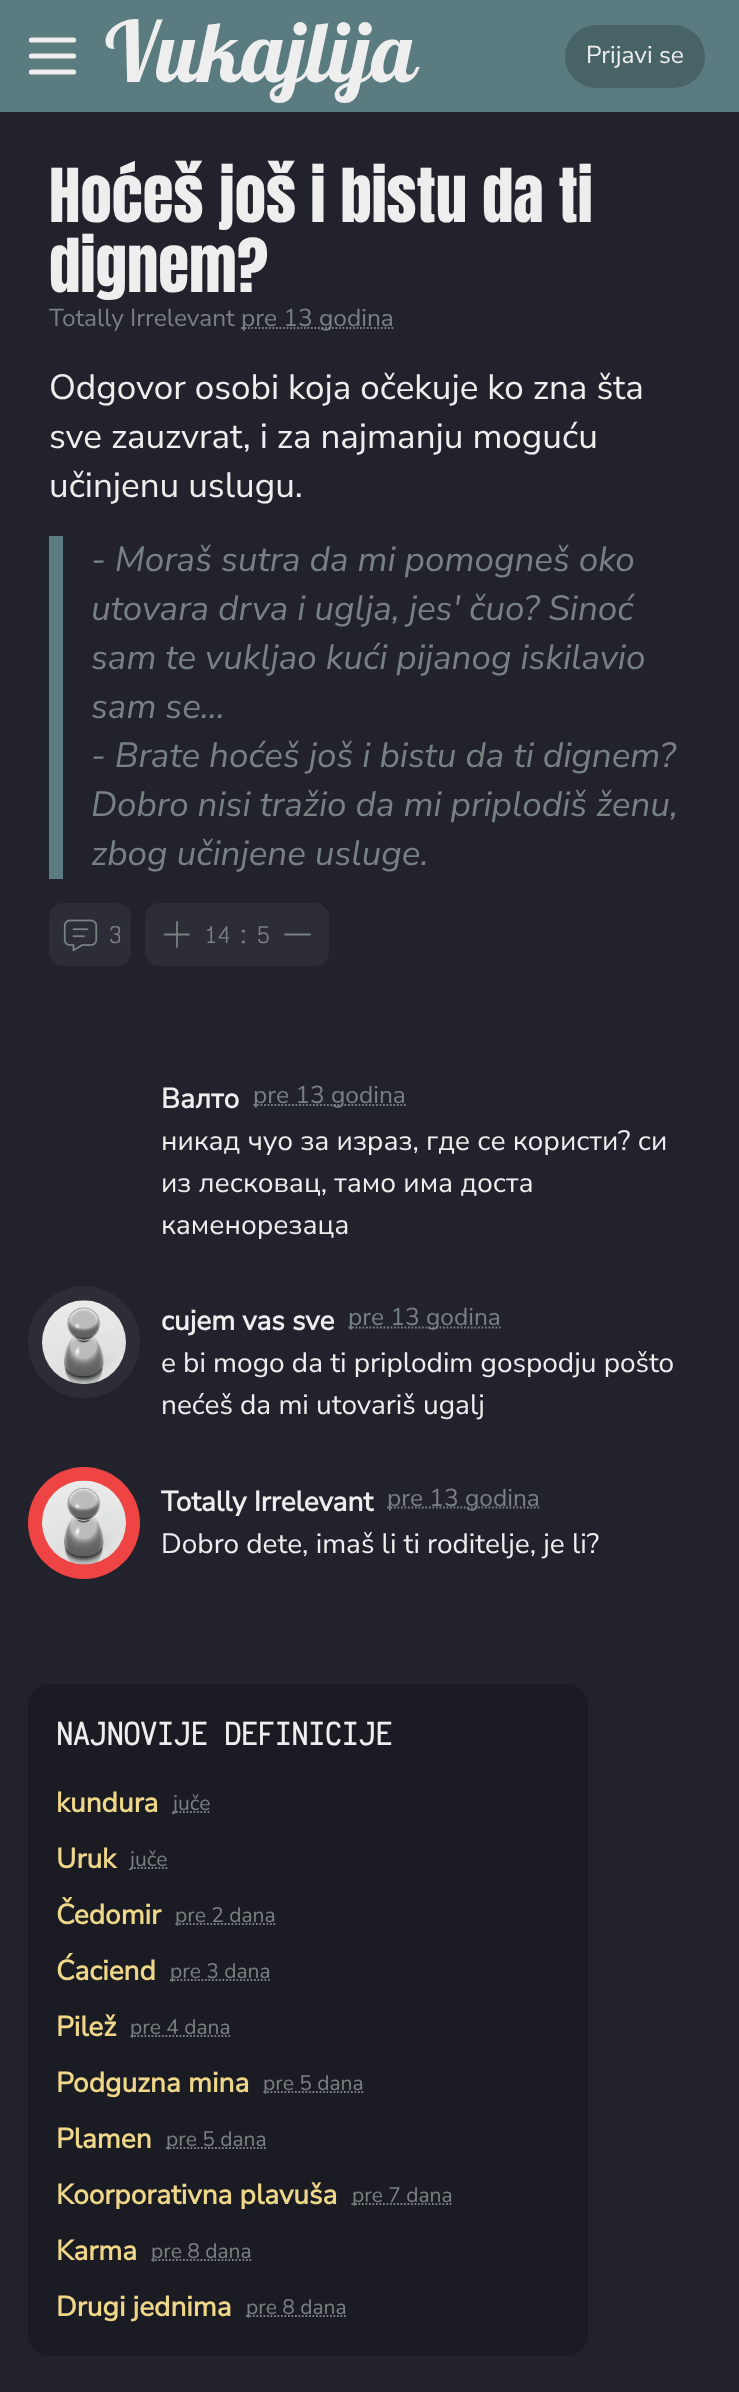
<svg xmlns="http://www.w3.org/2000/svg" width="739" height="2392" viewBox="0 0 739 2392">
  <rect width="100%" height="100%" fill="rgb(90,124,128)"/>
  <path d="M31.5 40H73.5M31.5 56H73.5M31.5 72H73.5" fill="none" stroke="rgb(238,238,238)" stroke-width="5.2" stroke-linecap="round" stroke-linejoin="round"/>
  <text x="105" y="82" font-family="Pattaya" font-size="84" fill="rgb(238,238,238)">Vukajlija</text>
  <rect x="565" y="25" width="140" height="63" rx="31.5" fill="rgb(72,99,102)"/>
  <text x="586" y="63" font-family="Nunito Sans" font-size="24.5" fill="rgb(238,238,238)">Prijavi se</text>
  <rect x="0" y="112" width="739" height="2280" fill="rgb(34,34,44)"/>
  <g font-family="Anton" font-size="63" fill="rgb(238,238,238)">
    <text>
      <tspan x="49" y="222">Hoćeš još i bistu da ti</tspan>
      <tspan x="49" y="292">dignem?</tspan>
    </text>
  </g>
  <text x="49" y="326" font-family="Nunito Sans" font-size="24.5" fill="rgb(120,129,130)">Totally Irrelevant</text>
  <path d="M241 328H393.5" fill="none" stroke="rgb(120,129,130)" stroke-width="1.8" stroke-dasharray="1.75 1.75"/>
  <text x="241" y="326" font-family="Nunito Sans" font-size="24.5" fill="rgb(120,129,130)">pre 13 godina</text>
  <g font-family="Nunito Sans" font-size="35" fill="rgb(238,238,238)">
    <text>
      <tspan x="49" y="399">Odgovor osobi koja očekuje ko zna šta</tspan>
      <tspan x="49" y="448">sve zauzvrat, i za najmanju moguću</tspan>
      <tspan x="49" y="497">učinjenu uslugu.</tspan>
    </text>
  </g>
  <rect x="49" y="536" width="14" height="343" fill="rgb(90,124,128)"/>
  <g font-family="Nunito Sans" font-size="35" font-style="italic" fill="rgb(120,129,130)">
    <text>
      <tspan x="91" y="571">- Moraš sutra da mi pomogneš oko</tspan>
      <tspan x="91" y="620">utovara drva i uglja, jes' čuo? Sinoć</tspan>
      <tspan x="91" y="669">sam te vukljao kući pijanog iskilavio</tspan>
      <tspan x="91" y="718">sam se...</tspan>
      <tspan x="91" y="767">- Brate hoćeš još i bistu da ti dignem?</tspan>
      <tspan x="91" y="816">Dobro nisi tražio da mi priplodiš ženu,</tspan>
      <tspan x="91" y="865">zbog učinjene usluge.</tspan>
    </text>
  </g>
  <rect x="49" y="903" width="82" height="63" rx="14" fill="rgb(45,45,55)"/>
  <image x="63" y="919" width="35" height="33" href="pic1.png"/>
  <text x="109" y="943" font-family="Victor Mono" font-size="21" fill="rgb(120,129,130)">3</text>
  <rect x="145" y="903" width="184" height="63" rx="14" fill="rgb(45,45,55)"/>
  <path d="M177 922V947M164.5 934.5H189" fill="none" stroke="rgb(120,129,130)" stroke-width="1.8" stroke-linecap="round" stroke-linejoin="round"/>
  <g font-family="Victor Mono" font-size="21" fill="rgb(120,129,130)">
    <text x="205" y="943">14</text>
    <text x="237" y="943">:</text>
    <text x="257" y="943">5</text>
  </g>
  <path d="M285 934.5H310" fill="none" stroke="rgb(120,129,130)" stroke-width="1.8" stroke-linecap="round" stroke-linejoin="round"/>
  <text x="161" y="1108" font-family="Nunito Sans" font-size="28" font-weight="bold" fill="rgb(238,238,238)">Валто</text>
  <path d="M253.5 1105H406" fill="none" stroke="rgb(120,129,130)" stroke-width="1.8" stroke-dasharray="1.75 1.75"/>
  <text x="253" y="1103" font-family="Nunito Sans" font-size="24.5" fill="rgb(120,129,130)">pre 13 godina</text>
  <g font-family="Nunito Sans" font-size="28" fill="rgb(238,238,238)">
    <text>
      <tspan x="161" y="1150">никад чуо за израз, где се користи? си</tspan>
      <tspan x="161" y="1192">из лесковац, тамо има доста</tspan>
      <tspan x="161" y="1234">каменорезаца</tspan>
    </text>
  </g>
  <circle cx="84" cy="1342" r="56" fill="rgb(45,45,55)"/>
  <image x="42" y="1300" width="84" height="85" href="pic2.png"/>
  <text x="161" y="1330" font-family="Nunito Sans" font-size="28" font-weight="bold" fill="rgb(238,238,238)">cujem vas sve</text>
  <path d="M348.5 1327.5H501" fill="none" stroke="rgb(120,129,130)" stroke-width="1.8" stroke-dasharray="1.75 1.75"/>
  <text x="348" y="1325" font-family="Nunito Sans" font-size="24.5" fill="rgb(120,129,130)">pre 13 godina</text>
  <g font-family="Nunito Sans" font-size="28" fill="rgb(238,238,238)">
    <text>
      <tspan x="161" y="1372">e bi mogo da ti priplodim gospodju pošto</tspan>
      <tspan x="161" y="1414">nećeš da mi utovariš ugalj</tspan>
    </text>
  </g>
  <circle cx="84" cy="1523" r="56" fill="rgb(239,68,68)"/>
  <image x="42" y="1480" width="84" height="85" href="pic3.png"/>
  <text x="161" y="1511" font-family="Nunito Sans" font-size="28" font-weight="bold" fill="rgb(238,238,238)">Totally Irrelevant</text>
  <path d="M387 1507.5H540" fill="none" stroke="rgb(120,129,130)" stroke-width="1.8" stroke-dasharray="1.75 1.75"/>
  <text x="387" y="1506" font-family="Nunito Sans" font-size="24.5" fill="rgb(120,129,130)">pre 13 godina</text>
  <text x="161" y="1553" font-family="Nunito Sans" font-size="28" fill="rgb(238,238,238)">Dobro dete, imaš li ti roditelje, je li?</text>
  <rect x="28" y="1684" width="560" height="672" rx="21" fill="rgb(27,27,35)"/>
  <text x="56" y="1745" font-family="Victor Mono" font-size="28" font-weight="bold" fill="rgb(238,238,238)">NAJNOVIJE DEFINICIJE</text>
  <text x="56" y="1812" font-family="Nunito Sans" font-size="28" font-weight="bold" fill="rgb(239,215,138)">kundura</text>
  <path d="M172.5 1812H210" fill="none" stroke="rgb(120,129,130)" stroke-width="1.8" stroke-dasharray="1.75 1.75"/>
  <text x="173" y="1810" font-family="Nunito Sans" font-size="21" fill="rgb(120,129,130)">juče</text>
  <text x="56" y="1868" font-family="Nunito Sans" font-size="28" font-weight="bold" fill="rgb(239,215,138)">Uruk</text>
  <path d="M130.5 1868H168" fill="none" stroke="rgb(120,129,130)" stroke-width="1.8" stroke-dasharray="1.75 1.75"/>
  <text x="130" y="1866" font-family="Nunito Sans" font-size="21" fill="rgb(120,129,130)">juče</text>
  <text x="56" y="1924" font-family="Nunito Sans" font-size="28" font-weight="bold" fill="rgb(239,215,138)">Čedomir</text>
  <path d="M175.5 1924H276" fill="none" stroke="rgb(120,129,130)" stroke-width="1.8" stroke-dasharray="1.75 1.75"/>
  <text x="175" y="1922" font-family="Nunito Sans" font-size="21" fill="rgb(120,129,130)">pre 2 dana</text>
  <text x="56" y="1980" font-family="Nunito Sans" font-size="28" font-weight="bold" fill="rgb(239,215,138)">Ćaciend</text>
  <path d="M170 1980H270.5" fill="none" stroke="rgb(120,129,130)" stroke-width="1.8" stroke-dasharray="1.75 1.75"/>
  <text x="170" y="1978" font-family="Nunito Sans" font-size="21" fill="rgb(120,129,130)">pre 3 dana</text>
  <text x="56" y="2036" font-family="Nunito Sans" font-size="28" font-weight="bold" fill="rgb(239,215,138)">Pilež</text>
  <path d="M130.5 2036H231" fill="none" stroke="rgb(120,129,130)" stroke-width="1.8" stroke-dasharray="1.75 1.75"/>
  <text x="130" y="2034" font-family="Nunito Sans" font-size="21" fill="rgb(120,129,130)">pre 4 dana</text>
  <text x="56" y="2092" font-family="Nunito Sans" font-size="28" font-weight="bold" fill="rgb(239,215,138)">Podguzna mina</text>
  <path d="M263.5 2092H364" fill="none" stroke="rgb(120,129,130)" stroke-width="1.8" stroke-dasharray="1.75 1.75"/>
  <text x="263" y="2090" font-family="Nunito Sans" font-size="21" fill="rgb(120,129,130)">pre 5 dana</text>
  <text x="56" y="2148" font-family="Nunito Sans" font-size="28" font-weight="bold" fill="rgb(239,215,138)">Plamen</text>
  <path d="M166 2148H266.5" fill="none" stroke="rgb(120,129,130)" stroke-width="1.8" stroke-dasharray="1.75 1.75"/>
  <text x="166" y="2146" font-family="Nunito Sans" font-size="21" fill="rgb(120,129,130)">pre 5 dana</text>
  <text x="56" y="2204" font-family="Nunito Sans" font-size="28" font-weight="bold" fill="rgb(239,215,138)">Koorporativna plavuša</text>
  <path d="M351.5 2204H452" fill="none" stroke="rgb(120,129,130)" stroke-width="1.8" stroke-dasharray="1.75 1.75"/>
  <text x="352" y="2202" font-family="Nunito Sans" font-size="21" fill="rgb(120,129,130)">pre 7 dana</text>
  <text x="56" y="2260" font-family="Nunito Sans" font-size="28" font-weight="bold" fill="rgb(239,215,138)">Karma</text>
  <path d="M151.5 2260H252" fill="none" stroke="rgb(120,129,130)" stroke-width="1.8" stroke-dasharray="1.75 1.75"/>
  <text x="151" y="2258" font-family="Nunito Sans" font-size="21" fill="rgb(120,129,130)">pre 8 dana</text>
  <text x="56" y="2316" font-family="Nunito Sans" font-size="28" font-weight="bold" fill="rgb(239,215,138)">Drugi jednima</text>
  <path d="M246 2316H346.5" fill="none" stroke="rgb(120,129,130)" stroke-width="1.8" stroke-dasharray="1.75 1.75"/>
  <text x="246" y="2314" font-family="Nunito Sans" font-size="21" fill="rgb(120,129,130)">pre 8 dana</text>
</svg>
